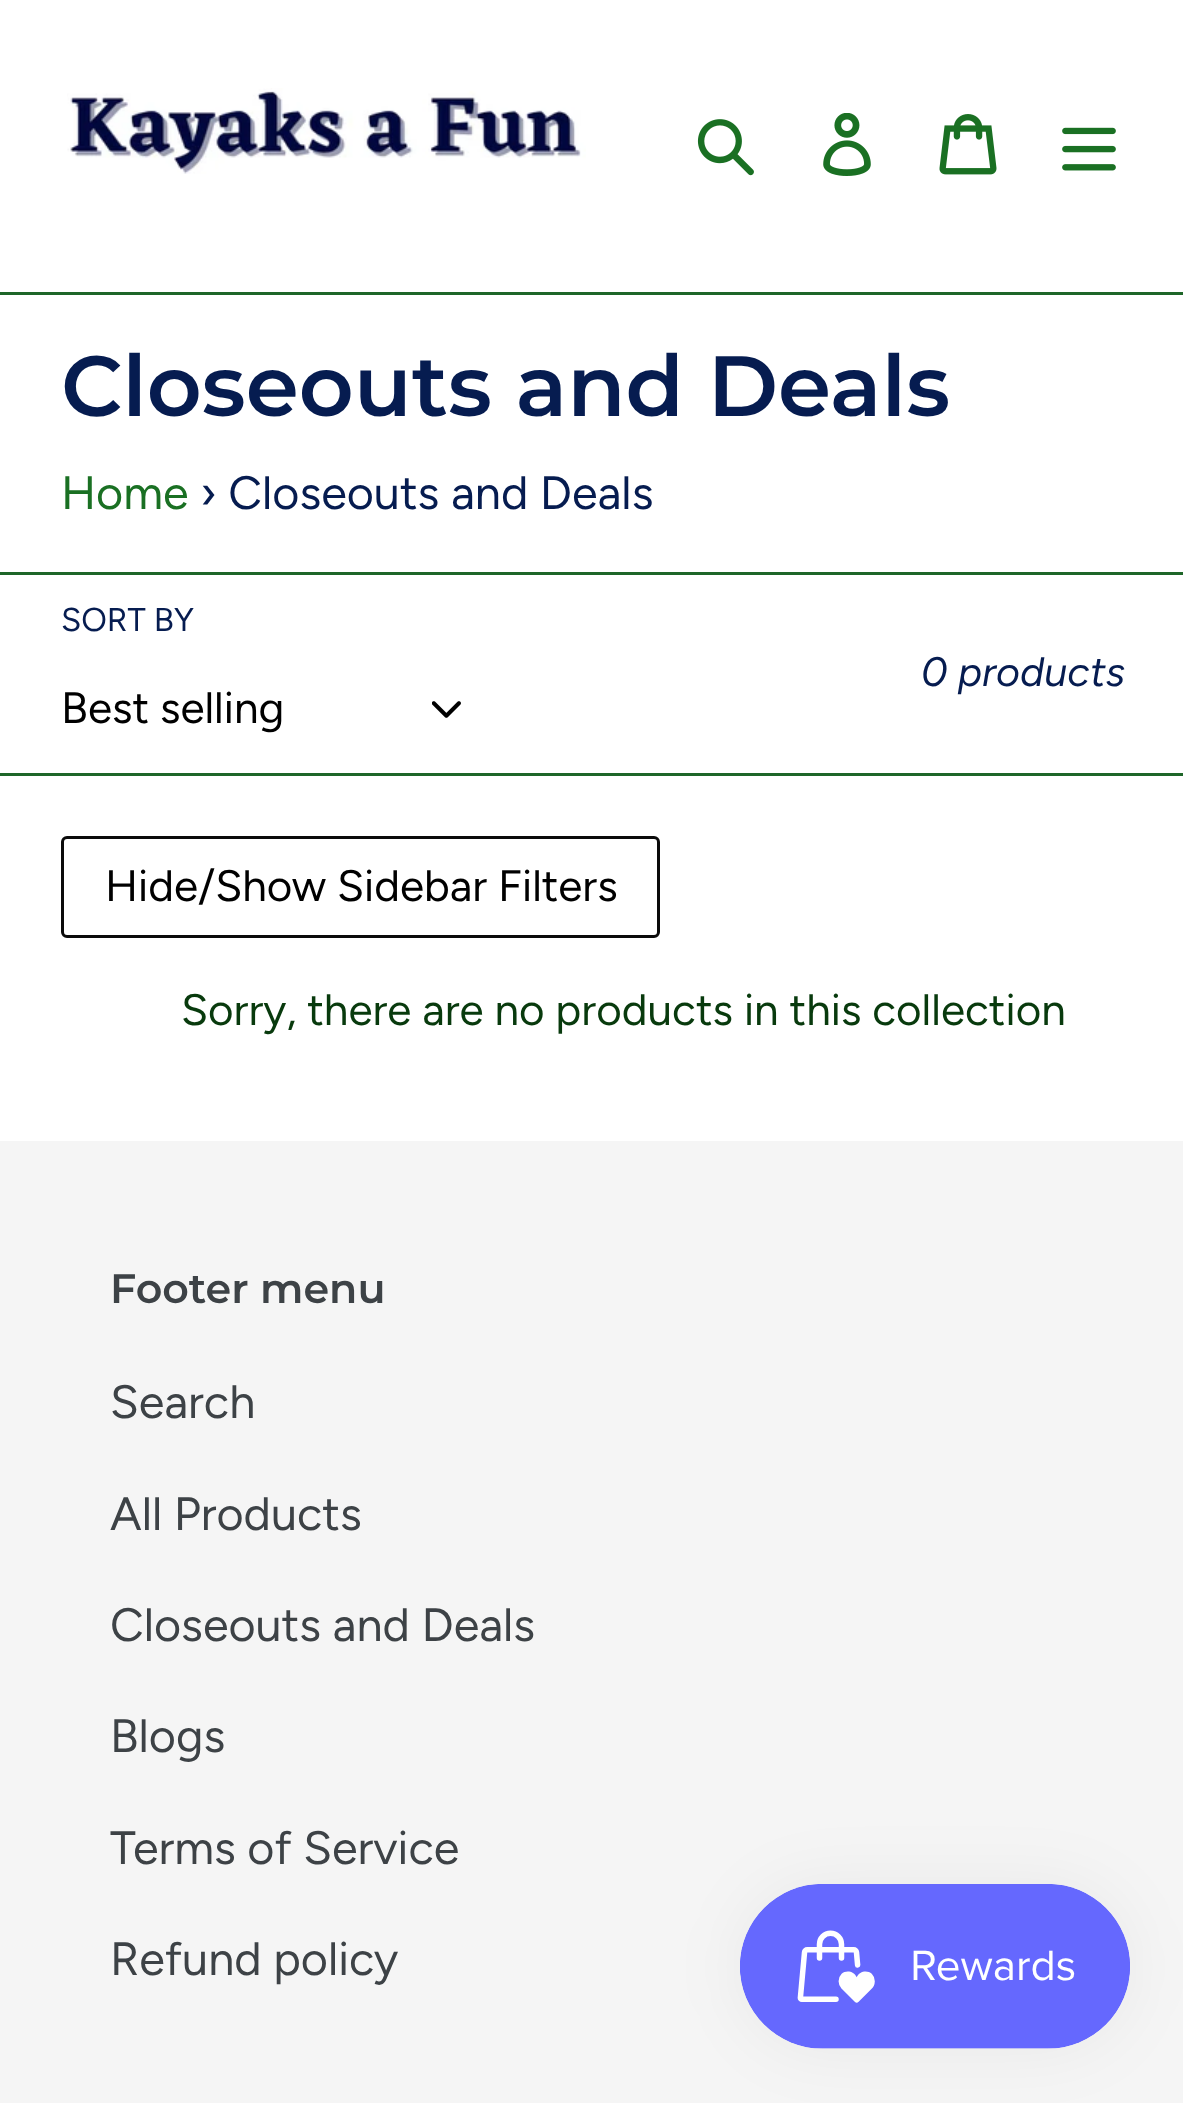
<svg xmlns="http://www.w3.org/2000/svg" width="1183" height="2103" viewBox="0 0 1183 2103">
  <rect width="100%" height="100%" fill="rgb(255,255,255)"/>
  <rect x="0" y="292" width="1183" height="3" fill="rgb(30,102,41)"/>
  <image x="67" y="88" width="519" height="86" href="pic1.png"/>
  <image x="697" y="119" width="57" height="57" href="pic2.png"/>
  <image x="823" y="113" width="48" height="63" href="pic3.png"/>
  <image x="939" y="114" width="58" height="61" href="pic4.png"/>
  <image x="1062" y="127" width="54" height="44" href="pic5.png"/>
  <text x="61" y="416" font-family="Montserrat" font-size="85.25" font-weight="600" fill="rgb(6,28,80)">Closeouts and Deals</text>
  <text x="61" y="509" font-family="Figtree" font-size="46.75" fill="rgb(26,112,35)">Home</text>
  <text x="200" y="509" font-family="Figtree" font-size="46.75" fill="rgb(6,28,80)">› Closeouts and Deals</text>
  <rect x="0" y="572" width="1183" height="3" fill="rgb(30,102,41)"/>
  <rect x="0" y="773" width="1183" height="3" fill="rgb(30,102,41)"/>
  <text x="61" y="631" font-family="Figtree" font-size="33" fill="rgb(6,28,80)">SORT BY</text>
  <text x="61" y="723" font-family="Figtree" font-size="44" fill="rgb(0,0,0)">Best selling</text>
  <image x="432" y="701" width="29" height="17" href="pic6.png"/>
  <text x="921" y="686" font-family="Figtree" font-size="41.25" font-style="italic" fill="rgb(6,28,80)">0 products</text>
  <rect x="62.5" y="837.5" width="596" height="99" rx="4.5" fill="none" stroke="rgb(11,11,11)" stroke-width="3"/>
  <text x="105" y="901" font-family="Figtree" font-size="44" fill="rgb(0,0,0)">Hide/Show Sidebar Filters</text>
  <text x="181" y="1025" font-family="Figtree" font-size="44" fill="rgb(8,58,13)">Sorry, there are no products in this collection</text>
  <rect x="0" y="1141" width="1183" height="962" fill="rgb(245,245,245)"/>
  <text x="110" y="1303" font-family="Montserrat" font-size="41.25" font-weight="600" fill="rgb(61,66,70)">Footer menu</text>
  <g font-family="Figtree" font-size="46.75" fill="rgb(61,66,70)">
    <text x="110" y="1418">Search</text>
    <text x="110" y="1530">All Products</text>
    <text x="110" y="1641">Closeouts and Deals</text>
    <text x="110" y="1752">Blogs</text>
    <text x="110" y="1864">Terms of Service</text>
    <text x="110" y="1975">Refund policy</text>
  </g>
  <rect x="740" y="1884" width="390" height="165" rx="82.5" fill="rgba(0,0,0,0.05)" filter="blur(34.5px)"/>
  <image x="740" y="1884" width="390" height="165" href="pic7.png"/>
</svg>
